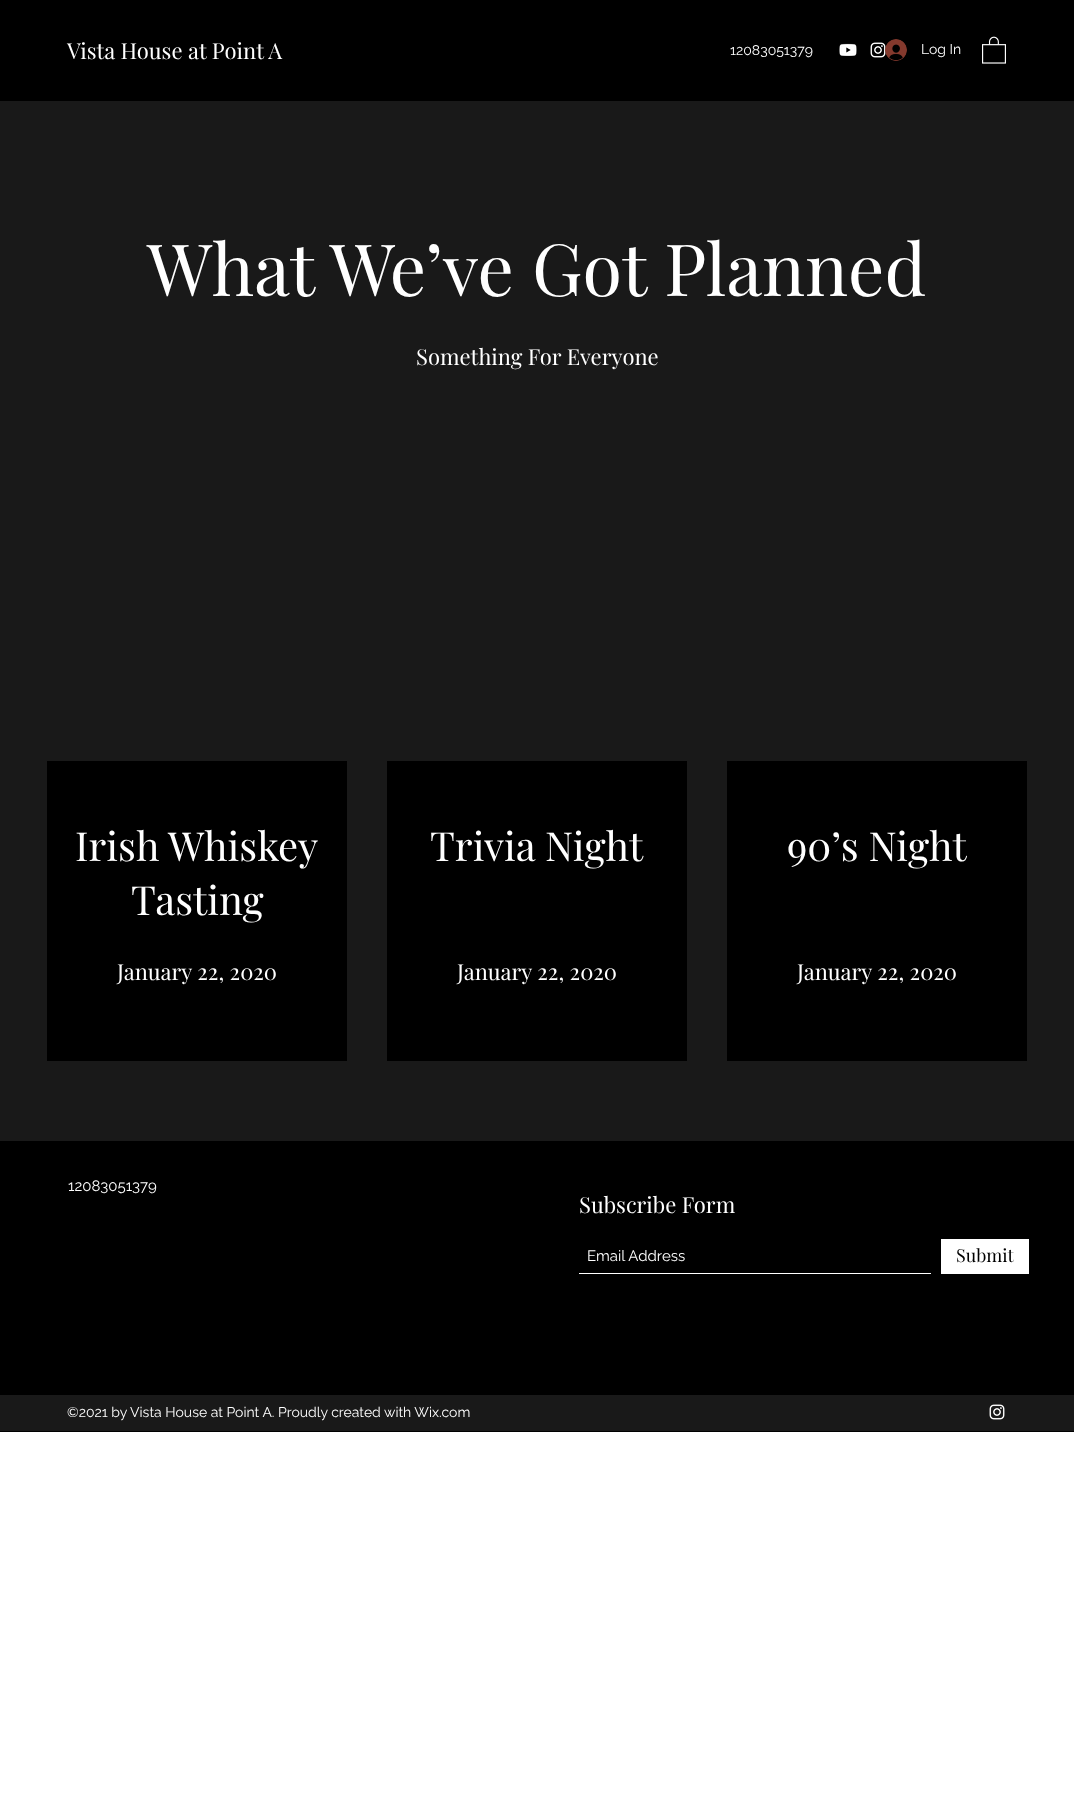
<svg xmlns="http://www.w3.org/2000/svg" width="1074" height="1794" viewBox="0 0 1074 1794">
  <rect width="100%" height="100%" fill="rgb(255,255,255)"/>
  <rect x="0" y="0" width="1074" height="101" fill="rgb(0,0,0)"/>
  <text x="67" y="59" font-family="Playfair Display" font-size="22" fill="rgb(255,255,255)">Vista House at Point A</text>
  <text x="730" y="55" font-family="Raleway" font-size="14" fill="rgb(255,255,255)">12083051379</text>
  <image x="839" y="43" width="18" height="13" href="pic1.png"/>
  <image x="870" y="42" width="16" height="16" href="pic2.png"/>
  <image x="885" y="39" width="22" height="22" href="pic3.png"/>
  <text x="921" y="54" font-family="Raleway" font-size="14" fill="rgb(255,255,255)">Log In</text>
  <image x="982" y="36" width="24" height="28" href="pic4.png"/>
  <rect x="0" y="101" width="1074" height="1040" fill="rgb(25,25,25)"/>
  <text x="147" y="296" font-family="Playfair Display" font-size="72" fill="rgb(255,255,255)">What We’ve Got Planned</text>
  <text x="416" y="365" font-family="Playfair Display" font-size="22" fill="rgb(255,255,255)">Something For Everyone</text>
  <rect x="47" y="761" width="300" height="300" fill="rgb(0,0,0)"/>
  <g font-family="Playfair Display" font-size="40" fill="rgb(255,255,255)">
    <text x="75" y="861">Irish Whiskey</text>
    <text x="131" y="915">Tasting</text>
  </g>
  <text x="117" y="980" font-family="Playfair Display" font-size="22" fill="rgb(255,255,255)">January 22, 2020</text>
  <rect x="387" y="761" width="300" height="300" fill="rgb(0,0,0)"/>
  <text x="430" y="861" font-family="Playfair Display" font-size="40" fill="rgb(255,255,255)">Trivia Night</text>
  <text x="457" y="980" font-family="Playfair Display" font-size="22" fill="rgb(255,255,255)">January 22, 2020</text>
  <rect x="727" y="761" width="300" height="300" fill="rgb(0,0,0)"/>
  <text x="787" y="861" font-family="Playfair Display" font-size="40" fill="rgb(255,255,255)">90’s Night</text>
  <text x="797" y="980" font-family="Playfair Display" font-size="22" fill="rgb(255,255,255)">January 22, 2020</text>
  <rect x="0" y="1141" width="1074" height="291" fill="rgb(0,0,0)"/>
  <text x="68" y="1191" font-family="Raleway" font-size="15" fill="rgb(255,255,255)">12083051379</text>
  <text x="579" y="1213" font-family="Playfair Display" font-size="22" fill="rgb(255,255,255)">Subscribe Form</text>
  <rect x="579" y="1273" width="352" height="1" fill="rgb(255,255,255)"/>
  <text x="587" y="1261" font-family="Raleway" font-size="15" fill="rgb(255,255,255)">Email Address</text>
  <rect x="941" y="1239" width="88" height="35" fill="rgb(255,255,255)"/>
  <text x="956" y="1262" font-family="Playfair Display" font-size="18" fill="rgb(0,0,0)">Submit</text>
  <rect x="0" y="1395" width="1074" height="36" fill="rgb(25,25,25)"/>
  <text x="67" y="1417" font-family="Raleway" font-size="14" fill="rgb(255,255,255)">©2021 by Vista House at Point A. Proudly created with Wix.com</text>
  <image x="989" y="1404" width="16" height="16" href="pic5.png"/>
</svg>
